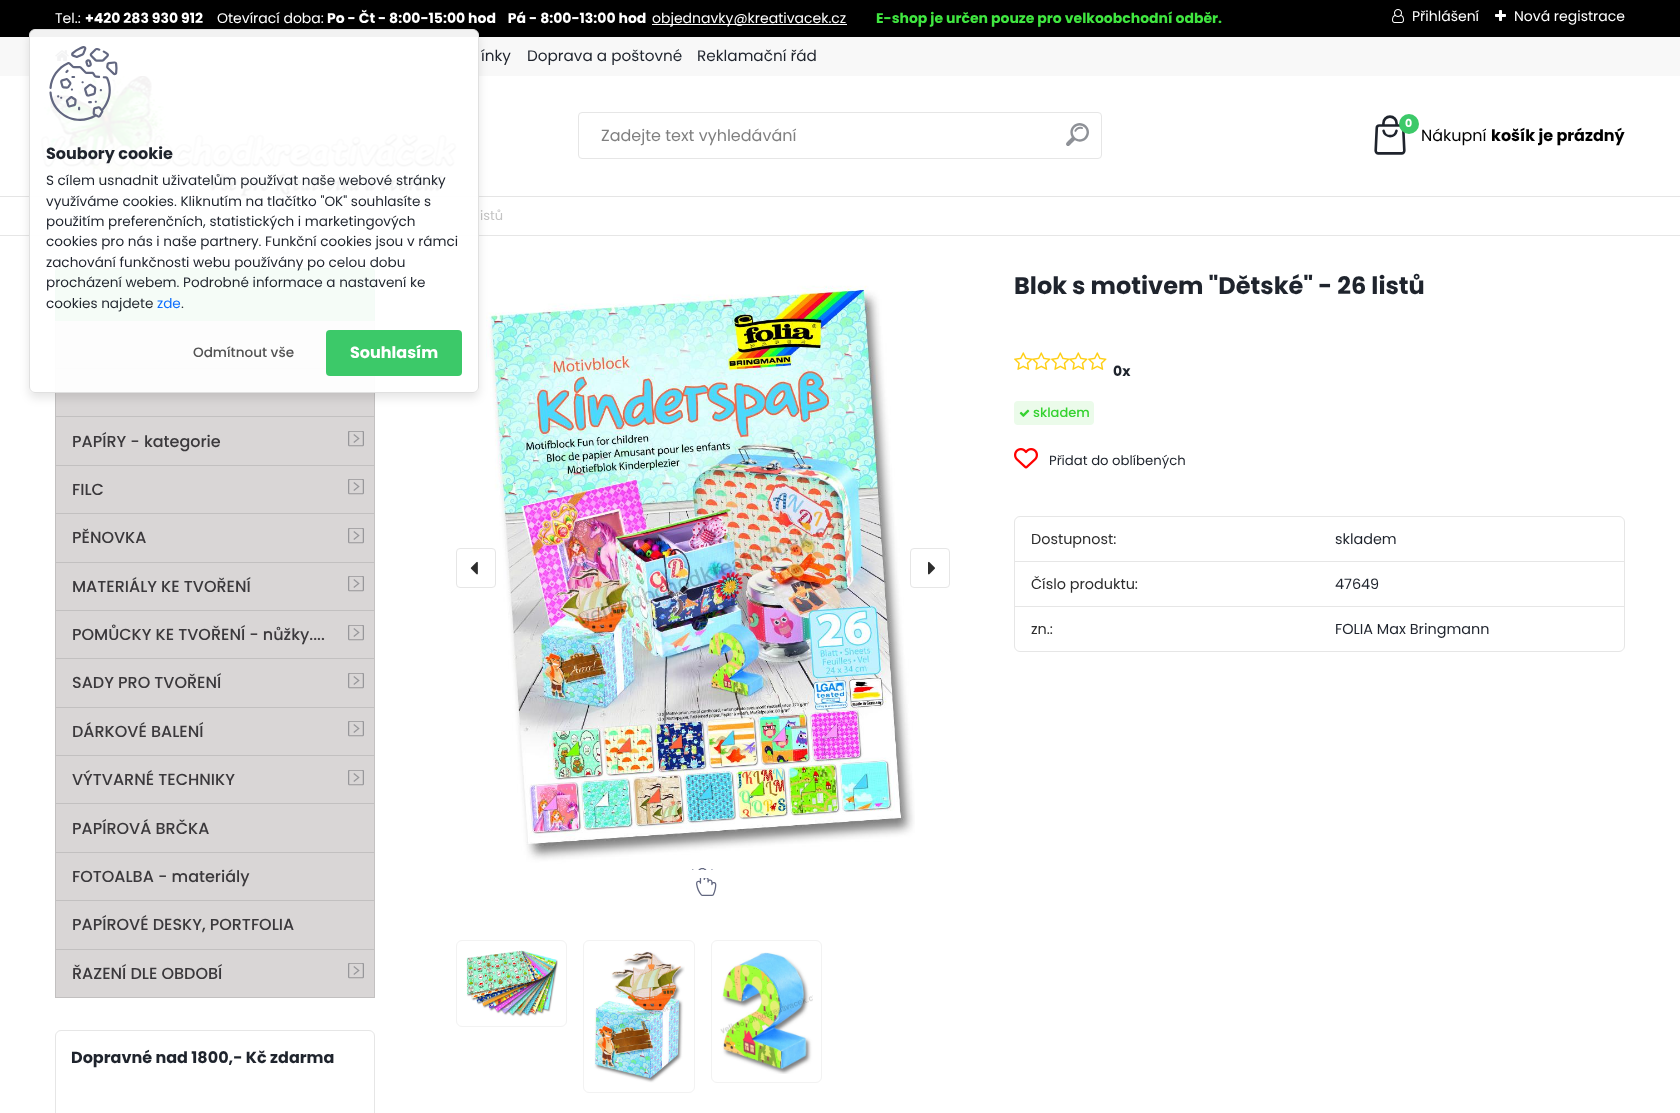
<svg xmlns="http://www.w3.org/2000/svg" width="1680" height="1113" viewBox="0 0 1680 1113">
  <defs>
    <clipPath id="clip1"><path d="M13 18H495V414H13ZM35 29H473C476.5 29 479 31.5 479 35V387C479 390.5 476.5 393 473 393H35C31.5 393 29 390.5 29 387V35C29 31.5 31.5 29 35 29Z" clip-rule="evenodd"/></clipPath>
  </defs>
  <rect width="100%" height="100%" fill="rgb(255,255,255)"/>
  <rect x="0" y="0" width="1680" height="37" fill="rgb(0,0,0)"/>
  <text x="55" y="23" font-family="Poppins" font-size="14" fill="rgb(255,255,255)">Tel.:</text>
  <text x="85" y="23" font-family="Poppins" font-size="14" font-weight="bold" fill="rgb(255,255,255)">+420 283 930 912</text>
  <text x="217" y="23" font-family="Poppins" font-size="14" fill="rgb(255,255,255)">Otevírací doba:</text>
  <text x="327" y="23" font-family="Poppins" font-size="14" font-weight="bold" fill="rgb(255,255,255)" xml:space="preserve">Po - Čt - 8:00-15:00 hod    Pá - 8:00-13:00 hod</text>
  <rect x="652" y="24" width="195" height="1" fill="rgb(255,255,255)"/>
  <text x="652" y="23" font-family="Poppins" font-size="14" fill="rgb(255,255,255)">objednavky@kreativacek.cz</text>
  <text x="876" y="23" font-family="Poppins" font-size="14" font-weight="bold" fill="rgb(64,230,64)">E-shop je určen pouze pro velkoobchodní odběr.</text>
  <image x="1392" y="9" width="12" height="14" href="pic1.png"/>
  <text x="1412" y="21" font-family="Poppins" font-size="14" fill="rgb(255,255,255)">Přihlášení</text>
  <image x="1495" y="10" width="11" height="11" href="pic2.png"/>
  <text x="1514" y="21" font-family="Poppins" font-size="14" fill="rgb(255,255,255)">Nová registrace</text>
  <image x="40" y="76" width="417" height="121" href="pic3.png"/>
  <rect x="0" y="196" width="1680" height="1" fill="rgba(0,0,0,0.1)"/>
  <rect x="0" y="37" width="1680" height="39" fill="rgb(248,248,248)"/>
  <image x="55" y="50" width="14" height="11" href="pic4.png"/>
  <g font-family="Poppins" font-size="15.25" fill="rgb(31,36,45)">
    <text x="481" y="61">ínky</text>
    <text x="527" y="61">Doprava a poštovné</text>
    <text x="697" y="61">Reklamační řád</text>
  </g>
  <rect x="578.5" y="112.5" width="523" height="46" rx="3.5" fill="none" stroke="rgb(230,230,230)"/>
  <text x="601" y="141" font-family="Poppins" font-size="16" fill="rgb(128,128,128)">Zadejte text vyhledávání</text>
  <image x="1066" y="123" width="23" height="23" href="pic5.png"/>
  <image x="1374" y="115" width="32" height="40" href="pic6.png"/>
  <circle cx="1409" cy="124" r="10" fill="rgb(60,201,105)"/>
  <text x="1405" y="127" font-family="Poppins" font-size="11" font-weight="bold" fill="rgb(255,255,255)">0</text>
  <text x="1421" y="141" font-family="Poppins" font-size="16" fill="rgb(0,0,0)">Nákupní</text>
  <text x="1491" y="141" font-family="Poppins" font-size="16" font-weight="bold" fill="rgb(0,0,0)">košík je prázdný</text>
  <rect x="0" y="235" width="1680" height="1" fill="rgb(230,230,230)"/>
  <path d="M111.5 206H112.5L122 215.5H121Z" fill="rgb(195,195,195)"/>
  <path d="M121 215.5H122L112.5 225H111.5Z" fill="rgb(195,195,195)"/>
  <path d="M265 206H266L275.5 215.5H274.5Z" fill="rgb(195,195,195)"/>
  <path d="M274.5 215.5H275.5L266 225H265Z" fill="rgba(55,55,55,0.3)"/>
  <text x="480" y="220" font-family="Poppins" font-size="13" fill="rgb(195,195,195)">istů</text>
  <path d="M375 321V369L374 368V321Z" fill="rgb(195,193,193)"/>
  <rect x="55" y="322" width="319" height="47" fill="rgb(217,214,214)"/>
  <path d="M375 369H55L56 368H374Z" fill="rgba(0,0,0,0.1)"/>
  <path d="M55 369V321H56V368Z" fill="rgba(0,0,0,0.1)"/>
  <rect x="55" y="321" width="320" height="1" fill="rgb(217,217,217)"/>
  <path d="M58 268H372C373.5 268 375 269.5 375 271V321H55V271C55 269.5 56.5 268 58 268Z" fill="rgb(60,201,105)"/>
  <path d="M58 268H372C374 268 375 269 375 271V321H55V271C55 269 56 268 58 268ZM58 269H372C373 269 374 270 374 271V321H56V271C56 270 57 269 58 269Z" fill="rgba(0,0,0,0.1)" fill-rule="evenodd"/>
  <rect x="55" y="369" width="320" height="629" fill="rgb(217,214,214)"/>
  <path d="M375 369V417L374 416V369Z" fill="rgb(195,193,193)"/>
  <path d="M375 417H55L56 416H374Z" fill="rgba(0,0,0,0.1)"/>
  <path d="M55 417V369H56V416Z" fill="rgba(0,0,0,0.1)"/>
  <path d="M375 417V466L374 465V417Z" fill="rgb(195,193,193)"/>
  <path d="M375 466H55L56 465H374Z" fill="rgba(0,0,0,0.1)"/>
  <path d="M55 466V417H56V465Z" fill="rgba(0,0,0,0.1)"/>
  <text x="72" y="447" font-family="Poppins" font-size="16" font-weight="500" fill="rgb(59,57,60)">PAPÍRY - kategorie</text>
  <image x="348" y="431" width="16" height="16" href="pic7.png"/>
  <path d="M375 466V514L374 513V466Z" fill="rgb(195,193,193)"/>
  <path d="M375 514H55L56 513H374Z" fill="rgba(0,0,0,0.1)"/>
  <path d="M55 514V466H56V513Z" fill="rgba(0,0,0,0.1)"/>
  <text x="72" y="495" font-family="Poppins" font-size="16" font-weight="500" fill="rgb(59,57,60)">FILC</text>
  <image x="348" y="479" width="16" height="16" href="pic7.png"/>
  <path d="M375 514V563L374 562V514Z" fill="rgb(195,193,193)"/>
  <path d="M375 563H55L56 562H374Z" fill="rgba(0,0,0,0.1)"/>
  <path d="M55 563V514H56V562Z" fill="rgba(0,0,0,0.1)"/>
  <text x="72" y="543" font-family="Poppins" font-size="16" font-weight="500" fill="rgb(59,57,60)">PĚNOVKA</text>
  <image x="348" y="528" width="16" height="16" href="pic7.png"/>
  <path d="M375 563V611L374 610V563Z" fill="rgb(195,193,193)"/>
  <path d="M375 611H55L56 610H374Z" fill="rgba(0,0,0,0.1)"/>
  <path d="M55 611V563H56V610Z" fill="rgba(0,0,0,0.1)"/>
  <text x="72" y="592" font-family="Poppins" font-size="16" font-weight="500" fill="rgb(59,57,60)">MATERIÁLY KE TVOŘENÍ</text>
  <image x="348" y="576" width="16" height="16" href="pic7.png"/>
  <path d="M375 611V659L374 658V611Z" fill="rgb(195,193,193)"/>
  <path d="M375 659H55L56 658H374Z" fill="rgba(0,0,0,0.1)"/>
  <path d="M55 659V611H56V658Z" fill="rgba(0,0,0,0.1)"/>
  <text x="72" y="640" font-family="Poppins" font-size="16" font-weight="500" fill="rgb(59,57,60)">POMŮCKY KE TVOŘENÍ - nůžky....</text>
  <image x="348" y="625" width="16" height="16" href="pic7.png"/>
  <path d="M375 659V708L374 707V659Z" fill="rgb(195,193,193)"/>
  <path d="M375 708H55L56 707H374Z" fill="rgba(0,0,0,0.1)"/>
  <path d="M55 708V659H56V707Z" fill="rgba(0,0,0,0.1)"/>
  <text x="72" y="688" font-family="Poppins" font-size="16" font-weight="500" fill="rgb(59,57,60)">SADY PRO TVOŘENÍ</text>
  <image x="348" y="673" width="16" height="16" href="pic7.png"/>
  <path d="M375 708V756L374 755V708Z" fill="rgb(195,193,193)"/>
  <path d="M375 756H55L56 755H374Z" fill="rgba(0,0,0,0.1)"/>
  <path d="M55 756V708H56V755Z" fill="rgba(0,0,0,0.1)"/>
  <text x="72" y="737" font-family="Poppins" font-size="16" font-weight="500" fill="rgb(59,57,60)">DÁRKOVÉ BALENÍ</text>
  <image x="348" y="721" width="16" height="16" href="pic7.png"/>
  <path d="M375 756V804L374 803V756Z" fill="rgb(195,193,193)"/>
  <path d="M375 804H55L56 803H374Z" fill="rgba(0,0,0,0.1)"/>
  <path d="M55 804V756H56V803Z" fill="rgba(0,0,0,0.1)"/>
  <text x="72" y="785" font-family="Poppins" font-size="16" font-weight="500" fill="rgb(59,57,60)">VÝTVARNÉ TECHNIKY</text>
  <image x="348" y="770" width="16" height="16" href="pic7.png"/>
  <path d="M375 804V853L374 852V804Z" fill="rgb(195,193,193)"/>
  <path d="M375 853H55L56 852H374Z" fill="rgba(0,0,0,0.1)"/>
  <path d="M55 853V804H56V852Z" fill="rgba(0,0,0,0.1)"/>
  <text x="72" y="834" font-family="Poppins" font-size="16" font-weight="500" fill="rgb(59,57,60)">PAPÍROVÁ BRČKA</text>
  <path d="M375 853V901L374 900V853Z" fill="rgb(195,193,193)"/>
  <path d="M375 901H55L56 900H374Z" fill="rgba(0,0,0,0.1)"/>
  <path d="M55 901V853H56V900Z" fill="rgba(0,0,0,0.1)"/>
  <text x="72" y="882" font-family="Poppins" font-size="16" font-weight="500" fill="rgb(59,57,60)">FOTOALBA - materiály</text>
  <path d="M375 901V950L374 949V901Z" fill="rgb(195,193,193)"/>
  <path d="M375 950H55L56 949H374Z" fill="rgba(0,0,0,0.1)"/>
  <path d="M55 950V901H56V949Z" fill="rgba(0,0,0,0.1)"/>
  <text x="72" y="930" font-family="Poppins" font-size="16" font-weight="500" fill="rgb(59,57,60)">PAPÍROVÉ DESKY, PORTFOLIA</text>
  <path d="M375 950V998L374 997V950Z" fill="rgb(195,193,193)"/>
  <path d="M375 998H55L56 997H374Z" fill="rgba(0,0,0,0.1)"/>
  <path d="M55 998V950H56V997Z" fill="rgba(0,0,0,0.1)"/>
  <text x="72" y="979" font-family="Poppins" font-size="16" font-weight="500" fill="rgb(59,57,60)">ŘAZENÍ DLE OBDOBÍ</text>
  <image x="348" y="963" width="16" height="16" href="pic7.png"/>
  <rect x="55.5" y="1030.5" width="319" height="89" rx="5.5" fill="none" stroke="rgb(230,230,230)"/>
  <text x="71" y="1063" font-family="Poppins" font-size="16" font-weight="bold" fill="rgb(31,36,45)">Dopravné nad 1800,- Kč zdarma</text>
  <image x="486" y="285" width="429" height="585" href="pic8.png"/>
  <rect x="456.5" y="548.5" width="39" height="39" rx="3.5" fill="none" stroke="rgb(230,230,230)"/>
  <image x="470" y="561" width="8" height="14" href="pic9.png"/>
  <rect x="910.5" y="548.5" width="39" height="39" rx="3.5" fill="none" stroke="rgb(230,230,230)"/>
  <image x="928" y="561" width="7" height="14" href="pic10.png"/>
  <image x="696" y="878" width="21" height="18" href="pic11.png"/>
  <rect x="456.5" y="940.5" width="110" height="86" rx="5.5" fill="none" stroke="rgb(242,242,242)"/>
  <image x="466" y="950" width="92" height="67" href="pic12.png"/>
  <rect x="583.5" y="940.5" width="111" height="152" rx="5.5" fill="none" stroke="rgb(242,242,242)"/>
  <image x="594" y="951" width="91" height="132" href="pic13.png"/>
  <rect x="711.5" y="940.5" width="110" height="142" rx="5.5" fill="none" stroke="rgb(242,242,242)"/>
  <image x="720" y="952" width="93" height="122" href="pic14.png"/>
  <text x="1014" y="294" font-family="Poppins" font-size="24" font-weight="bold" fill="rgb(31,36,45)">Blok s motivem "Dětské" - 26 listů</text>
  <image x="1014" y="352" width="19" height="18" href="pic15.png"/>
  <image x="1032" y="352" width="19" height="18" href="pic16.png"/>
  <image x="1051" y="352" width="19" height="18" href="pic15.png"/>
  <image x="1069" y="352" width="19" height="18" href="pic16.png"/>
  <image x="1088" y="352" width="19" height="18" href="pic15.png"/>
  <text x="1113" y="376" font-family="Poppins" font-size="14" font-weight="bold" fill="rgb(31,36,45)">0x</text>
  <rect x="1014" y="401" width="80" height="24" rx="4" fill="rgb(235,251,234)"/>
  <image x="1019" y="409" width="11" height="8" href="pic17.png"/>
  <text x="1033" y="417" font-family="Poppins" font-size="13" font-weight="500" fill="rgb(52,210,47)">skladem</text>
  <image x="1014" y="448" width="24" height="21" href="pic18.png"/>
  <text x="1049" y="465" font-family="Poppins" font-size="13.25" fill="rgb(31,36,45)">Přidat do oblíbených</text>
  <rect x="1014.5" y="516.5" width="610" height="135" rx="5.5" fill="none" stroke="rgb(230,230,230)"/>
  <rect x="1015" y="561" width="609" height="1" fill="rgb(230,230,230)"/>
  <text x="1031" y="544" font-family="Poppins" font-size="14.4" fill="rgb(45,45,45)">Dostupnost:</text>
  <text x="1335" y="544" font-family="Poppins" font-size="14.4" fill="rgb(31,36,45)">skladem</text>
  <rect x="1015" y="606" width="609" height="1" fill="rgb(230,230,230)"/>
  <text x="1031" y="589" font-family="Poppins" font-size="14.4" fill="rgb(45,45,45)">Číslo produktu:</text>
  <text x="1335" y="589" font-family="Poppins" font-size="14.4" fill="rgb(31,36,45)">47649</text>
  <text x="1031" y="634" font-family="Poppins" font-size="14.4" fill="rgb(45,45,45)">zn.:</text>
  <text x="1335" y="634" font-family="Poppins" font-size="14.4" fill="rgb(31,36,45)">FOLIA Max Bringmann</text>
  <g clip-path="url(#clip1)">
    <rect x="29" y="34" width="450" height="364" rx="6" fill="rgba(0,0,0,0.1)" filter="blur(5px)"/>
  </g>
  <rect x="29.5" y="29.5" width="449" height="363" rx="5.5" fill="rgba(255,255,255,0.95)" stroke="rgb(224,224,224)"/>
  <image x="49" y="46" width="69" height="75" href="pic19.png"/>
  <text x="46" y="159" font-family="Poppins" font-size="16" font-weight="bold" fill="rgb(31,36,45)">Soubory cookie</text>
  <g font-family="Poppins" font-size="13.6" fill="rgb(31,36,45)">
    <text>
      <tspan x="46" y="185">S cílem usnadnit uživatelům používat naše webové stránky</tspan>
      <tspan x="46" y="206">využíváme cookies. Kliknutím na tlačítko "OK" souhlasíte s</tspan>
      <tspan x="46" y="226">použitím preferenčních, statistických i marketingových</tspan>
      <tspan x="46" y="246">cookies pro nás i naše partnery. Funkční cookies jsou v rámci</tspan>
      <tspan x="46" y="267">zachování funkčnosti webu používány po celou dobu</tspan>
      <tspan x="46" y="287">procházení webem. Podrobné informace a nastavení ke</tspan>
      <tspan x="46" y="308">cookies najdete</tspan>
    </text>
  </g>
  <text x="157" y="308" font-family="Poppins" font-size="13.6" fill="rgb(13,110,253)">zde</text>
  <text x="181" y="308" font-family="Poppins" font-size="13.6" fill="rgb(31,36,45)">.</text>
  <text x="193" y="357" font-family="Poppins" font-size="13.6" font-weight="500" fill="rgb(83,83,83)">Odmítnout vše</text>
  <rect x="326" y="330" width="136" height="46" rx="4" fill="rgb(60,201,105)"/>
  <text x="350" y="358" font-family="Poppins" font-size="16" font-weight="bold" fill="rgb(255,255,255)">Souhlasím</text>
</svg>
